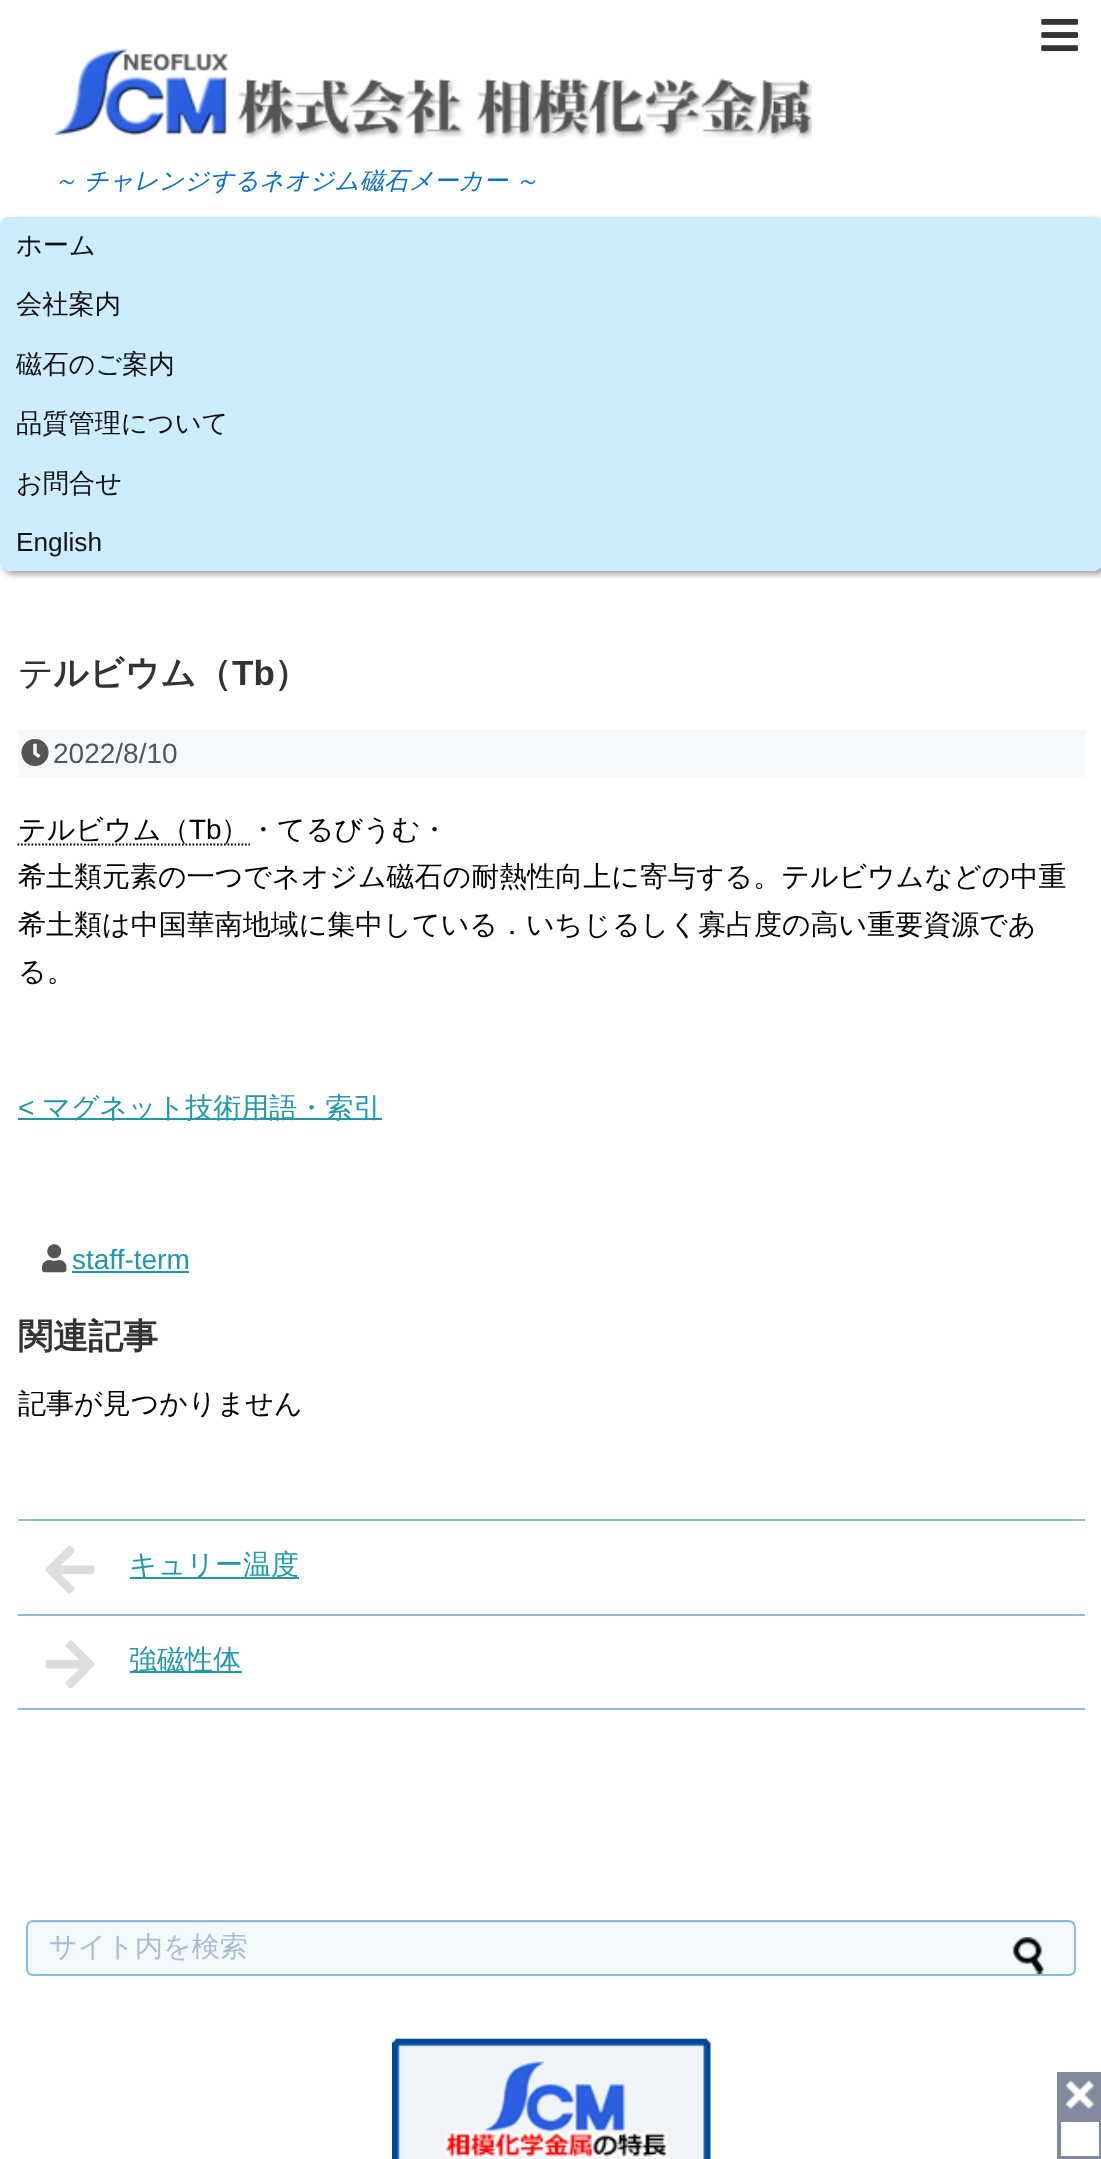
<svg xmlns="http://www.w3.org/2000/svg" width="1101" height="2159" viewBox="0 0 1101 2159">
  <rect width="100%" height="100%" fill="rgb(255,255,255)"/>
  <image x="1041" y="18" width="37" height="34" href="pic1.png"/>
  <image x="53" y="48" width="759" height="92" href="pic2.png"/>
  <text x="53" y="189" word-spacing="-1" font-family="WenQuanYi Zen Hei" font-size="24.5" font-weight="500" font-style="italic" fill="rgb(5,111,202)">～ チャレンジするネオジム磁石メーカー ～</text>
  <rect x="4" y="221" width="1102" height="353" rx="9" fill="rgb(152,152,152)" filter="blur(3.5px)"/>
  <rect x="0" y="217" width="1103" height="354" rx="9" fill="rgb(204,236,255)"/>
  <g font-family="WenQuanYi Zen Hei" font-size="26.25" font-weight="500" fill="rgb(17,17,17)">
    <text x="16" y="254">ホーム</text>
    <text x="16" y="313">会社案内</text>
    <text x="16" y="373">磁石のご案内</text>
    <text x="16" y="432">品質管理について</text>
    <text x="16" y="492">お問合せ</text>
  </g>
  <text x="16" y="551" font-family="Liberation Sans" font-size="26.25" fill="rgb(17,17,17)">English</text>
  <text x="18" y="685" font-family="Noto Sans" font-size="35" font-weight="100" fill="rgb(51,51,51)">テ</text>
  <text x="53" y="685" font-family="WenQuanYi Zen Hei" font-size="35" font-weight="bold" fill="rgb(51,51,51)">ルビウム（</text>
  <text x="232" y="685" font-family="Liberation Sans" font-size="35" font-weight="bold" fill="rgb(51,51,51)">Tb</text>
  <text x="274" y="685" font-family="WenQuanYi Zen Hei" font-size="35" font-weight="bold" fill="rgb(51,51,51)">）</text>
  <rect x="18" y="730" width="1067" height="47" fill="rgb(242,248,252)"/>
  <image x="21" y="739" width="28" height="27" href="pic3.png"/>
  <text x="53" y="763" font-family="Liberation Sans" font-size="28" fill="rgb(85,85,85)">2022/8/10</text>
  <path d="M17.5 844.5H250" fill="none" stroke="rgb(0,0,0)" stroke-width="1.8" stroke-dasharray="1.75 1.75"/>
  <text x="18" y="839" font-family="WenQuanYi Zen Hei" font-size="28" font-weight="500" fill="rgb(0,0,0)">テルビウム（</text>
  <text x="189" y="839" font-family="Liberation Sans" font-size="28" fill="rgb(0,0,0)">Tb</text>
  <g font-family="WenQuanYi Zen Hei" font-size="28" font-weight="500" fill="rgb(0,0,0)">
    <text x="221" y="839">）・てるびうむ・</text>
    <text>
      <tspan x="18" y="886">希土類元素の一つでネオジム磁石の耐熱性向上に寄与する。テルビウムなどの中重</tspan>
      <tspan x="18" y="934">希土類は中国華南地域に集中している．いちじるしく寡占度の高い重要資源であ</tspan>
      <tspan x="18" y="981">る。</tspan>
    </text>
  </g>
  <text x="18" y="1117" font-family="Liberation Sans" font-size="28" fill="rgb(32,152,168)">&lt;</text>
  <rect x="18" y="1118" width="364" height="2" fill="rgb(32,152,168)"/>
  <text x="42" y="1117" font-family="WenQuanYi Zen Hei" font-size="28" font-weight="500" fill="rgb(32,152,168)">マグネット技術用語・索引</text>
  <image x="42" y="1244" width="25" height="29" href="pic4.png"/>
  <text x="72" y="1269" font-family="Liberation Sans" font-size="28" fill="rgb(32,152,168)">staff-term</text>
  <rect x="72" y="1271" width="117" height="2" fill="rgb(32,152,168)"/>
  <text x="18" y="1348" font-family="WenQuanYi Zen Hei" font-size="35" font-weight="bold" fill="rgb(51,51,51)">関連記事</text>
  <text x="18" y="1413" font-family="WenQuanYi Zen Hei" font-size="28" font-weight="500" fill="rgb(0,0,0)">記事が見つかりません</text>
  <rect x="18" y="1519" width="1067" height="2" fill="rgb(137,189,222)"/>
  <rect x="18" y="1614" width="1067" height="2" fill="rgb(137,189,222)"/>
  <image x="45" y="1546" width="50" height="48" href="pic5.png"/>
  <rect x="130" y="1577" width="169" height="2" fill="rgb(32,152,168)"/>
  <text x="129" y="1574" font-family="WenQuanYi Zen Hei" font-size="28" font-weight="500" fill="rgb(32,152,168)">キュリー温度</text>
  <rect x="18" y="1708" width="1067" height="2" fill="rgb(137,189,222)"/>
  <image x="45" y="1640" width="50" height="48" href="pic6.png"/>
  <rect x="130" y="1671" width="112" height="2" fill="rgb(32,152,168)"/>
  <text x="129" y="1669" font-family="WenQuanYi Zen Hei" font-size="28" font-weight="500" fill="rgb(32,152,168)">強磁性体</text>
  <rect x="26" y="1920" width="1050" height="56" rx="7" fill="rgb(242,248,252)"/>
  <path d="M33 1923H1069C1072 1923 1074 1926 1074 1928V1970V1973C1074 1972 1075 1970 1075 1969V1927C1075 1924 1073 1922 1070 1922H33C30 1922 28 1924 28 1927V1928C28 1926 30 1923 33 1923Z" fill="rgb(224,229,233)"/>
  <rect x="27" y="1921" width="1048" height="54" rx="6" fill="none" stroke="rgb(137,189,222)" stroke-width="2"/>
  <text x="49" y="1956" font-family="WenQuanYi Zen Hei" font-size="28" font-weight="500" fill="rgb(170,188,209)">サイト内を検索</text>
  <image x="1012" y="1937" width="32" height="37" href="pic7.png"/>
  <image x="392" y="2038" width="319" height="121" href="pic8.png"/>
  <rect x="1057" y="2072" width="44" height="46" fill="rgb(130,137,156)"/>
  <image x="1065" y="2080" width="30" height="30" href="pic9.png"/>
  <rect x="1059" y="2120" width="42" height="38" fill="none" stroke="rgb(130,137,156)" stroke-width="4"/>
</svg>
